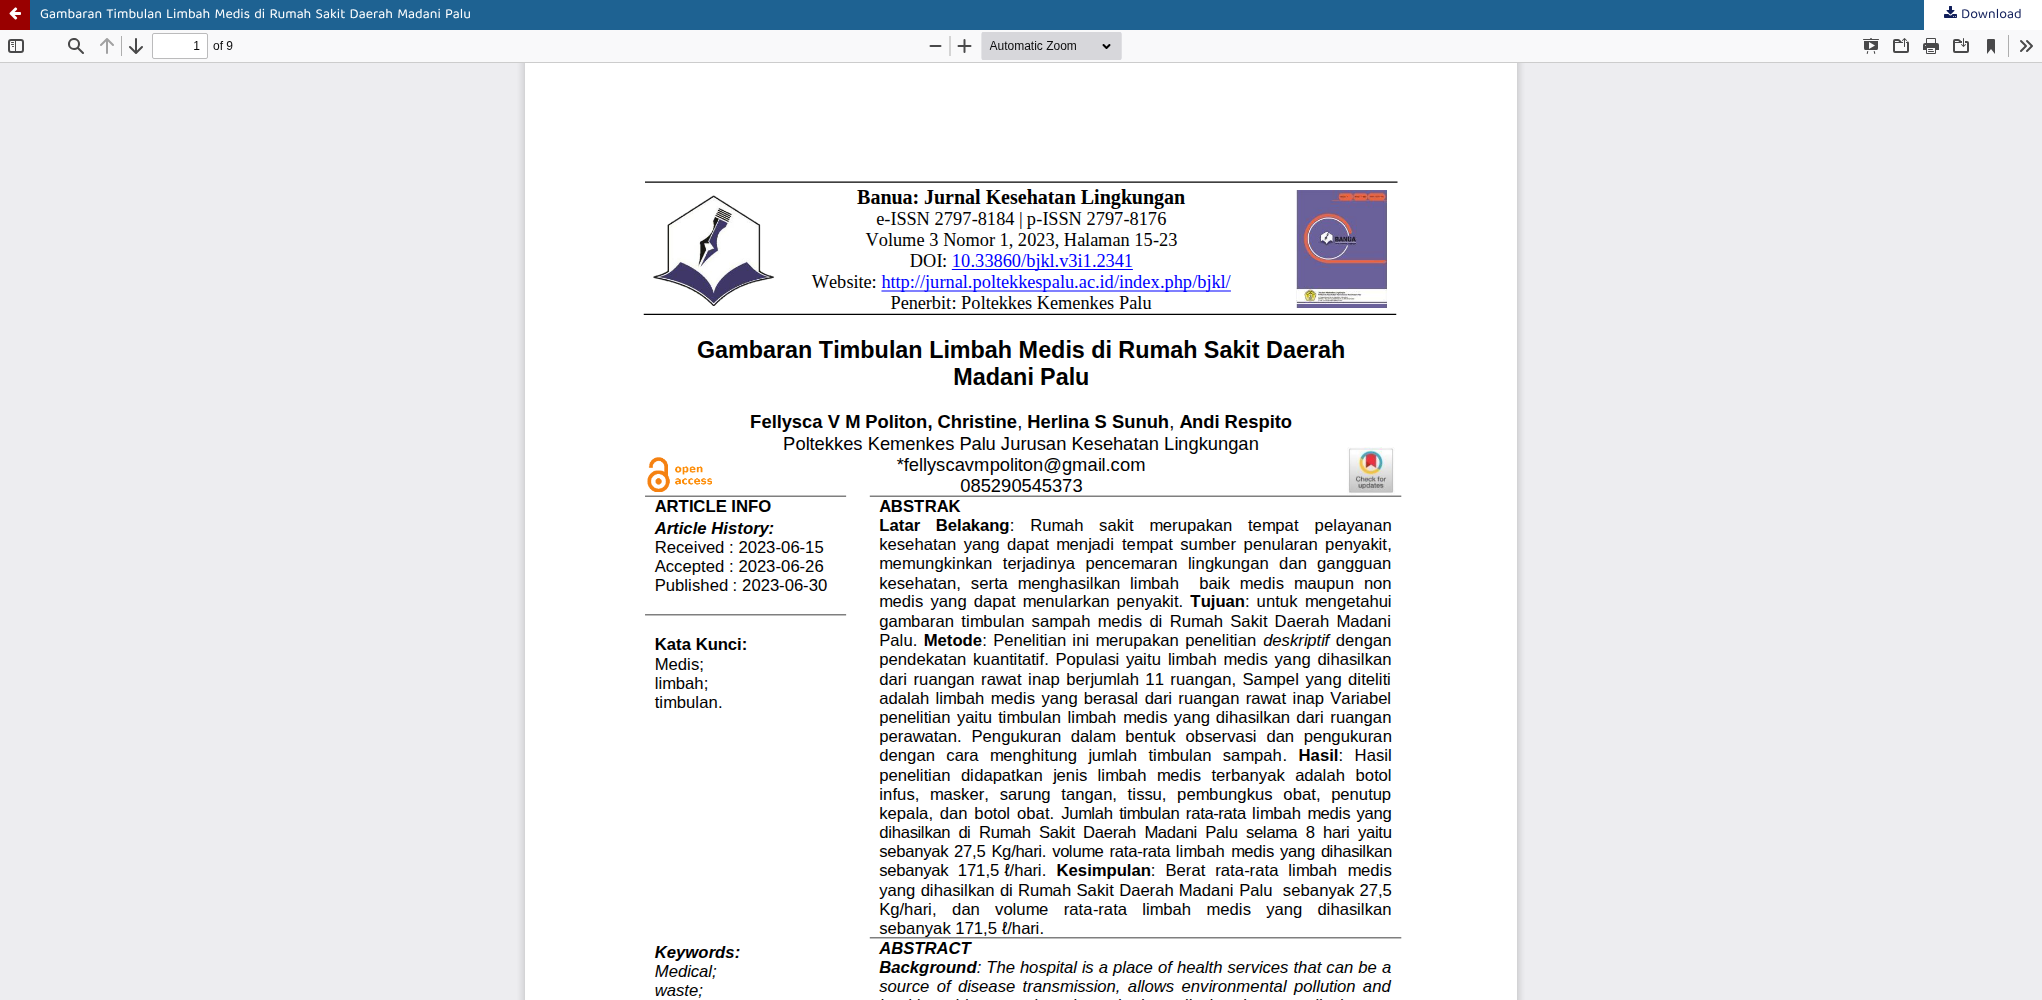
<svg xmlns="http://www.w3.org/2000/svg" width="2042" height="1000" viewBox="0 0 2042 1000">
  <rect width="100%" height="100%" fill="rgb(255,255,255)"/>
  <rect x="30" y="0" width="1894" height="30" fill="rgb(30,98,146)"/>
  <rect x="0" y="0" width="30" height="30" fill="rgb(153,0,0)"/>
  <image x="9" y="7" width="12" height="13" href="pic1.png"/>
  <text x="40" y="18" font-family="'Baloo Tamma 2'" font-size="14" fill="rgb(255,255,255)">Gambaran Timbulan Limbah Medis di Rumah Sakit Daerah Madani Palu</text>
  <image x="1944" y="6" width="13" height="12" href="pic2.png"/>
  <text x="1961" y="18" font-family="'Baloo Tamma 2'" font-size="14" fill="rgb(16,30,90)">Download</text>
  <image x="0" y="30" width="2042" height="970" href="pic3.png"/>
</svg>
